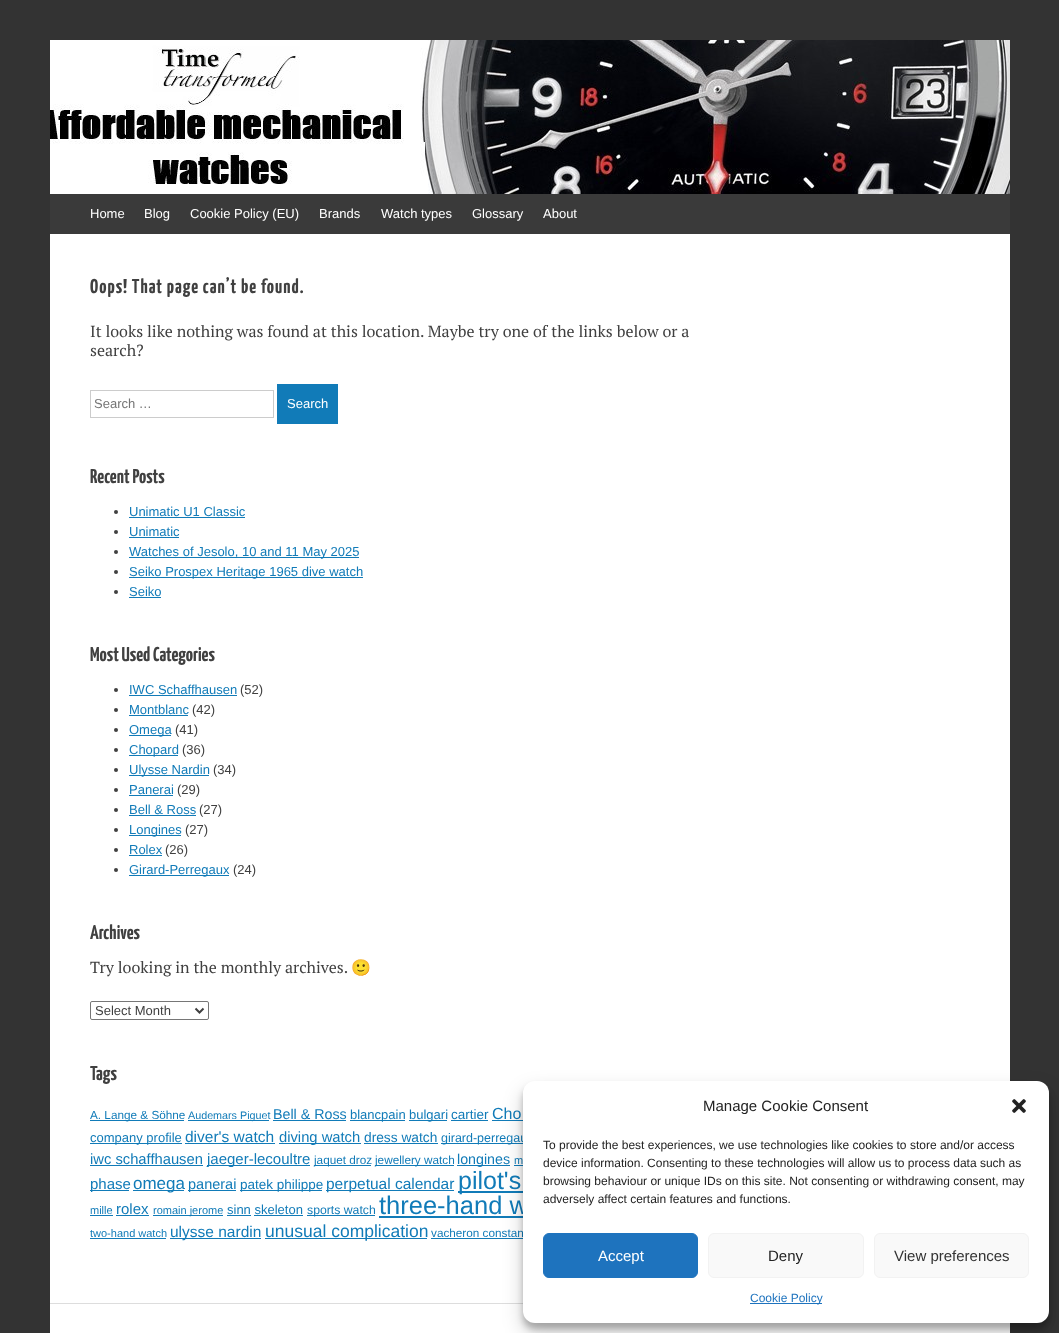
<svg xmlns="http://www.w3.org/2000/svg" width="1059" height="1333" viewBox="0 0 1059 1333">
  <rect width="100%" height="100%" fill="rgb(51,51,51)"/>
  <rect x="50" y="234" width="960" height="1099" fill="rgb(255,255,255)"/>
  <image x="50" y="40" width="960" height="154" href="pic1.png"/>
  <rect x="50" y="194" width="960" height="40" fill="rgb(58,58,58)"/>
  <g font-family="Liberation Sans" font-size="13" fill="rgb(255,255,255)">
    <text x="90" y="218">Home</text>
    <text x="144" y="218">Blog</text>
    <text x="190" y="218">Cookie Policy (EU)</text>
    <text x="319" y="218">Brands</text>
    <text x="381" y="218">Watch types</text>
    <text x="472" y="218">Glossary</text>
    <text x="543" y="218">About</text>
  </g>
  <rect x="50" y="1303" width="473" height="1" fill="rgb(221,221,221)"/>
  <text x="90" y="293" font-family="Yanone Kaffeesatz" font-size="20" font-weight="bold" letter-spacing="1" fill="rgb(64,64,64)">Oops! That page can’t be found.</text>
  <g font-family="PT Serif" font-size="16" fill="rgb(64,64,64)">
    <text>
      <tspan x="90" y="337">It looks like nothing was found at this location. Maybe try one of the links below or a</tspan>
      <tspan x="90" y="356">search?</tspan>
    </text>
  </g>
  <rect x="90.5" y="390.5" width="183" height="27" fill="none" stroke="rgb(204,204,204)"/>
  <text x="94" y="408" font-family="Liberation Sans" font-size="13" fill="rgb(117,117,117)">Search …</text>
  <rect x="277" y="384" width="61" height="40" fill="rgb(17,123,184)"/>
  <text x="287" y="408" font-family="Liberation Sans" font-size="13" fill="rgb(255,255,255)">Search</text>
  <text x="90" y="483" font-family="Yanone Kaffeesatz" font-size="20" font-weight="bold" fill="rgb(64,64,64)">Recent Posts</text>
  <circle cx="116" cy="512" r="2" fill="rgb(64,64,64)"/>
  <text x="129" y="516" font-family="Liberation Sans" font-size="13" fill="rgb(17,123,184)">Unimatic U1 Classic</text>
  <rect x="129" y="517" width="116" height="1" fill="rgb(17,123,184)"/>
  <circle cx="116" cy="532" r="2" fill="rgb(64,64,64)"/>
  <text x="129" y="536" font-family="Liberation Sans" font-size="13" fill="rgb(17,123,184)">Unimatic</text>
  <rect x="129" y="537" width="50" height="1" fill="rgb(17,123,184)"/>
  <circle cx="116" cy="552" r="2" fill="rgb(64,64,64)"/>
  <rect x="129" y="557" width="230" height="1" fill="rgb(17,123,184)"/>
  <text x="129" y="556" font-family="Liberation Sans" font-size="13" fill="rgb(17,123,184)">Watches of Jesolo, 10 and 11 May 2025</text>
  <circle cx="116" cy="572" r="2" fill="rgb(64,64,64)"/>
  <rect x="129" y="577" width="234" height="1" fill="rgb(17,123,184)"/>
  <text x="129" y="576" font-family="Liberation Sans" font-size="13" fill="rgb(17,123,184)">Seiko Prospex Heritage 1965 dive watch</text>
  <circle cx="116" cy="592" r="2" fill="rgb(64,64,64)"/>
  <text x="129" y="596" font-family="Liberation Sans" font-size="13" fill="rgb(17,123,184)">Seiko</text>
  <rect x="129" y="597" width="32" height="1" fill="rgb(17,123,184)"/>
  <text x="90" y="661" font-family="Yanone Kaffeesatz" font-size="20" font-weight="bold" fill="rgb(64,64,64)">Most Used Categories</text>
  <circle cx="116" cy="690" r="2" fill="rgb(64,64,64)"/>
  <text x="129" y="694" font-family="Liberation Sans" font-size="13" fill="rgb(17,123,184)">IWC Schaffhausen</text>
  <rect x="129" y="695" width="108" height="1" fill="rgb(17,123,184)"/>
  <text x="240" y="694" font-family="Liberation Sans" font-size="13" fill="rgb(64,64,64)">(52)</text>
  <circle cx="116" cy="710" r="2" fill="rgb(64,64,64)"/>
  <text x="129" y="714" font-family="Liberation Sans" font-size="13" fill="rgb(17,123,184)">Montblanc</text>
  <rect x="129" y="715" width="59" height="1" fill="rgb(17,123,184)"/>
  <text x="192" y="714" font-family="Liberation Sans" font-size="13" fill="rgb(64,64,64)">(42)</text>
  <circle cx="116" cy="730" r="2" fill="rgb(64,64,64)"/>
  <rect x="129" y="735" width="42" height="1" fill="rgb(17,123,184)"/>
  <text x="129" y="734" font-family="Liberation Sans" font-size="13" fill="rgb(17,123,184)">Omega</text>
  <text x="175" y="734" font-family="Liberation Sans" font-size="13" fill="rgb(64,64,64)">(41)</text>
  <circle cx="116" cy="750" r="2" fill="rgb(64,64,64)"/>
  <rect x="129" y="755" width="49" height="1" fill="rgb(17,123,184)"/>
  <text x="129" y="754" font-family="Liberation Sans" font-size="13" fill="rgb(17,123,184)">Chopard</text>
  <text x="182" y="754" font-family="Liberation Sans" font-size="13" fill="rgb(64,64,64)">(36)</text>
  <circle cx="116" cy="770" r="2" fill="rgb(64,64,64)"/>
  <rect x="129" y="775" width="80" height="1" fill="rgb(17,123,184)"/>
  <text x="129" y="774" font-family="Liberation Sans" font-size="13" fill="rgb(17,123,184)">Ulysse Nardin</text>
  <text x="213" y="774" font-family="Liberation Sans" font-size="13" fill="rgb(64,64,64)">(34)</text>
  <circle cx="116" cy="790" r="2" fill="rgb(64,64,64)"/>
  <text x="129" y="794" font-family="Liberation Sans" font-size="13" fill="rgb(17,123,184)">Panerai</text>
  <rect x="129" y="795" width="44" height="1" fill="rgb(17,123,184)"/>
  <text x="177" y="794" font-family="Liberation Sans" font-size="13" fill="rgb(64,64,64)">(29)</text>
  <circle cx="116" cy="810" r="2" fill="rgb(64,64,64)"/>
  <text x="129" y="814" font-family="Liberation Sans" font-size="13" fill="rgb(17,123,184)">Bell &amp; Ross</text>
  <rect x="129" y="815" width="67" height="1" fill="rgb(17,123,184)"/>
  <text x="199" y="814" font-family="Liberation Sans" font-size="13" fill="rgb(64,64,64)">(27)</text>
  <circle cx="116" cy="830" r="2" fill="rgb(64,64,64)"/>
  <rect x="129" y="835" width="52" height="1" fill="rgb(17,123,184)"/>
  <text x="129" y="834" font-family="Liberation Sans" font-size="13" fill="rgb(17,123,184)">Longines</text>
  <text x="185" y="834" font-family="Liberation Sans" font-size="13" fill="rgb(64,64,64)">(27)</text>
  <circle cx="116" cy="850" r="2" fill="rgb(64,64,64)"/>
  <text x="129" y="854" font-family="Liberation Sans" font-size="13" fill="rgb(17,123,184)">Rolex</text>
  <rect x="129" y="855" width="33" height="1" fill="rgb(17,123,184)"/>
  <text x="165" y="854" font-family="Liberation Sans" font-size="13" fill="rgb(64,64,64)">(26)</text>
  <circle cx="116" cy="870" r="2" fill="rgb(64,64,64)"/>
  <rect x="129" y="875" width="100" height="1" fill="rgb(17,123,184)"/>
  <text x="129" y="874" font-family="Liberation Sans" font-size="13" fill="rgb(17,123,184)">Girard-Perregaux</text>
  <text x="233" y="874" font-family="Liberation Sans" font-size="13" fill="rgb(64,64,64)">(24)</text>
  <text x="90" y="939" font-family="Yanone Kaffeesatz" font-size="20" font-weight="bold" fill="rgb(64,64,64)">Archives</text>
  <text x="90" y="973" font-family="PT Serif" font-size="16" fill="rgb(64,64,64)">Try looking in the monthly archives.</text>
  <text x="351" y="973" font-family="Noto Color Emoji" font-size="16" fill="rgb(64,64,64)">🙂</text>
  <rect x="90.5" y="1001.5" width="118" height="18" rx="1.5" fill="none" stroke="rgb(118,118,118)"/>
  <path d="M195.5 1008.5L199.5 1012.5L203.5 1008.5" fill="none" stroke="rgb(64,64,64)" stroke-width="2"/>
  <text x="95" y="1015" font-family="Liberation Sans" font-size="13" fill="rgb(64,64,64)">Select Month</text>
  <text x="90" y="1080" font-family="Yanone Kaffeesatz" font-size="20" font-weight="bold" fill="rgb(64,64,64)">Tags</text>
  <rect x="90" y="1120" width="94" height="1" fill="rgb(17,123,184)"/>
  <text x="90" y="1119" font-family="Liberation Sans" font-size="11.75" fill="rgb(17,123,184)">A. Lange &amp; Söhne</text>
  <rect x="188" y="1120" width="81" height="1" fill="rgb(17,123,184)"/>
  <text x="188" y="1119" font-family="Liberation Sans" font-size="10.75" fill="rgb(17,123,184)">Audemars Piguet</text>
  <text x="273" y="1119" font-family="Liberation Sans" font-size="14.25" fill="rgb(17,123,184)">Bell &amp; Ross</text>
  <rect x="273" y="1120" width="73" height="1" fill="rgb(17,123,184)"/>
  <rect x="350" y="1120" width="55" height="1" fill="rgb(17,123,184)"/>
  <text x="350" y="1119" font-family="Liberation Sans" font-size="13" fill="rgb(17,123,184)">blancpain</text>
  <rect x="409" y="1120" width="38" height="1" fill="rgb(17,123,184)"/>
  <text x="409" y="1119" font-family="Liberation Sans" font-size="13" fill="rgb(17,123,184)">bulgari</text>
  <text x="451" y="1119" font-family="Liberation Sans" font-size="13.5" fill="rgb(17,123,184)">cartier</text>
  <rect x="451" y="1120" width="37" height="1" fill="rgb(17,123,184)"/>
  <text x="492" y="1119" font-family="Liberation Sans" font-size="16" fill="rgb(17,123,184)">Cho</text>
  <rect x="492" y="1120" width="31" height="1" fill="rgb(17,123,184)"/>
  <rect x="90" y="1143" width="92" height="1" fill="rgb(17,123,184)"/>
  <text x="90" y="1142" font-family="Liberation Sans" font-size="13" fill="rgb(17,123,184)">company profile</text>
  <text x="185" y="1142" font-family="Liberation Sans" font-size="15.5" fill="rgb(17,123,184)">diver's watch</text>
  <rect x="185" y="1143" width="90" height="1" fill="rgb(17,123,184)"/>
  <rect x="279" y="1143" width="82" height="1" fill="rgb(17,123,184)"/>
  <text x="279" y="1142" font-family="Liberation Sans" font-size="14.75" fill="rgb(17,123,184)">diving watch</text>
  <text x="364" y="1142" font-family="Liberation Sans" font-size="13.75" fill="rgb(17,123,184)">dress watch</text>
  <rect x="364" y="1143" width="74" height="1" fill="rgb(17,123,184)"/>
  <rect x="441" y="1143" width="82" height="1" fill="rgb(17,123,184)"/>
  <text x="441" y="1142" font-family="Liberation Sans" font-size="12.5" fill="rgb(17,123,184)">girard-perregau</text>
  <text x="90" y="1164" font-family="Liberation Sans" font-size="14.75" fill="rgb(17,123,184)">iwc schaffhausen</text>
  <rect x="90" y="1165" width="113" height="1" fill="rgb(17,123,184)"/>
  <rect x="207" y="1165" width="103" height="1" fill="rgb(17,123,184)"/>
  <text x="207" y="1164" font-family="Liberation Sans" font-size="15" fill="rgb(17,123,184)">jaeger-lecoultre</text>
  <rect x="314" y="1165" width="57" height="1" fill="rgb(17,123,184)"/>
  <text x="314" y="1164" font-family="Liberation Sans" font-size="11.75" fill="rgb(17,123,184)">jaquet droz</text>
  <rect x="375" y="1165" width="79" height="1" fill="rgb(17,123,184)"/>
  <text x="375" y="1164" font-family="Liberation Sans" font-size="11.75" fill="rgb(17,123,184)">jewellery watch</text>
  <rect x="457" y="1165" width="53" height="1" fill="rgb(17,123,184)"/>
  <text x="457" y="1164" font-family="Liberation Sans" font-size="14.25" fill="rgb(17,123,184)">longines</text>
  <text x="514" y="1164" font-family="Liberation Sans" font-size="11" fill="rgb(17,123,184)">m</text>
  <rect x="514" y="1165" width="9" height="1" fill="rgb(17,123,184)"/>
  <rect x="90" y="1190" width="39" height="1" fill="rgb(17,123,184)"/>
  <text x="90" y="1189" font-family="Liberation Sans" font-size="15" fill="rgb(17,123,184)">phase</text>
  <rect x="133" y="1190" width="51" height="1" fill="rgb(17,123,184)"/>
  <text x="133" y="1189" font-family="Liberation Sans" font-size="17" fill="rgb(17,123,184)">omega</text>
  <rect x="188" y="1190" width="48" height="1" fill="rgb(17,123,184)"/>
  <text x="188" y="1189" font-family="Liberation Sans" font-size="14.5" fill="rgb(17,123,184)">panerai</text>
  <rect x="240" y="1190" width="82" height="1" fill="rgb(17,123,184)"/>
  <text x="240" y="1189" font-family="Liberation Sans" font-size="13.5" fill="rgb(17,123,184)">patek philippe</text>
  <rect x="326" y="1190" width="128" height="1" fill="rgb(17,123,184)"/>
  <text x="326" y="1189" font-family="Liberation Sans" font-size="15.5" fill="rgb(17,123,184)">perpetual calendar</text>
  <rect x="458" y="1191" width="65" height="2" fill="rgb(17,123,184)"/>
  <text x="458" y="1189" font-family="Liberation Sans" font-size="25" fill="rgb(17,123,184)">pilot's</text>
  <text x="90" y="1214" font-family="Liberation Sans" font-size="11" fill="rgb(17,123,184)">mille</text>
  <rect x="90" y="1215" width="23" height="1" fill="rgb(17,123,184)"/>
  <text x="116" y="1214" font-family="Liberation Sans" font-size="15" fill="rgb(17,123,184)">rolex</text>
  <rect x="116" y="1215" width="33" height="1" fill="rgb(17,123,184)"/>
  <rect x="153" y="1215" width="70" height="1" fill="rgb(17,123,184)"/>
  <text x="153" y="1214" font-family="Liberation Sans" font-size="11" fill="rgb(17,123,184)">romain jerome</text>
  <text x="227" y="1214" font-family="Liberation Sans" font-size="13" fill="rgb(17,123,184)">sinn skeleton</text>
  <rect x="227" y="1215" width="24" height="1" fill="rgb(17,123,184)"/>
  <rect x="307" y="1215" width="68" height="1" fill="rgb(17,123,184)"/>
  <text x="307" y="1214" font-family="Liberation Sans" font-size="12.25" fill="rgb(17,123,184)">sports watch</text>
  <text x="379" y="1214" font-family="Liberation Sans" font-size="25.5" fill="rgb(17,123,184)">three-hand w</text>
  <rect x="379" y="1216" width="144" height="2" fill="rgb(17,123,184)"/>
  <rect x="254" y="1215" width="49" height="1" fill="rgb(17,123,184)"/>
  <text x="90" y="1237" font-family="Liberation Sans" font-size="11" fill="rgb(17,123,184)">two-hand watch</text>
  <rect x="90" y="1238" width="76" height="1" fill="rgb(17,123,184)"/>
  <rect x="170" y="1238" width="91" height="1" fill="rgb(17,123,184)"/>
  <text x="170" y="1237" font-family="Liberation Sans" font-size="15.5" fill="rgb(17,123,184)">ulysse nardin</text>
  <rect x="265" y="1238" width="162" height="1" fill="rgb(17,123,184)"/>
  <text x="265" y="1237" font-family="Liberation Sans" font-size="17.5" fill="rgb(17,123,184)">unusual complication</text>
  <text x="431" y="1237" font-family="Liberation Sans" font-size="11.75" fill="rgb(17,123,184)">vacheron constan</text>
  <rect x="431" y="1238" width="92" height="1" fill="rgb(17,123,184)"/>
  <rect x="523" y="1087" width="526" height="242" rx="12" fill="rgba(0,0,0,0.23)" filter="blur(3px)"/>
  <rect x="523" y="1091" width="526" height="242" rx="12" fill="rgba(0,0,0,0.19)" filter="blur(10px)"/>
  <rect x="523" y="1081" width="526" height="242" rx="12" fill="rgb(255,255,255)"/>
  <text x="703" y="1111" font-family="Liberation Sans" font-size="15" fill="rgb(34,34,34)">Manage Cookie Consent</text>
  <image x="1012" y="1099" width="14" height="14" href="pic2.png"/>
  <g font-family="Liberation Sans" font-size="12" fill="rgb(34,34,34)">
    <text>
      <tspan x="543" y="1149">To provide the best experiences, we use technologies like cookies to store and/or access</tspan>
      <tspan x="543" y="1167">device information. Consenting to these technologies will allow us to process data such as</tspan>
      <tspan x="543" y="1185">browsing behaviour or unique IDs on this site. Not consenting or withdrawing consent, may</tspan>
      <tspan x="543" y="1203">adversely affect certain features and functions.</tspan>
    </text>
  </g>
  <rect x="543.5" y="1233.5" width="154" height="44" rx="5.5" fill="rgb(30,115,190)" stroke="rgb(30,115,190)"/>
  <text x="598" y="1261" font-family="Liberation Sans" font-size="15" fill="rgb(255,255,255)">Accept</text>
  <rect x="708.5" y="1233.5" width="155" height="44" rx="5.5" fill="rgb(249,249,249)" stroke="rgb(242,242,242)"/>
  <text x="768" y="1261" font-family="Liberation Sans" font-size="15" fill="rgb(34,34,34)">Deny</text>
  <rect x="874.5" y="1233.5" width="154" height="44" rx="5.5" fill="rgb(249,249,249)" stroke="rgb(242,242,242)"/>
  <text x="894" y="1261" font-family="Liberation Sans" font-size="15" fill="rgb(51,51,51)">View preferences</text>
  <rect x="750" y="1303" width="72" height="1" fill="rgb(30,115,190)"/>
  <text x="750" y="1302" font-family="Liberation Sans" font-size="12" fill="rgb(30,115,190)">Cookie Policy</text>
</svg>
